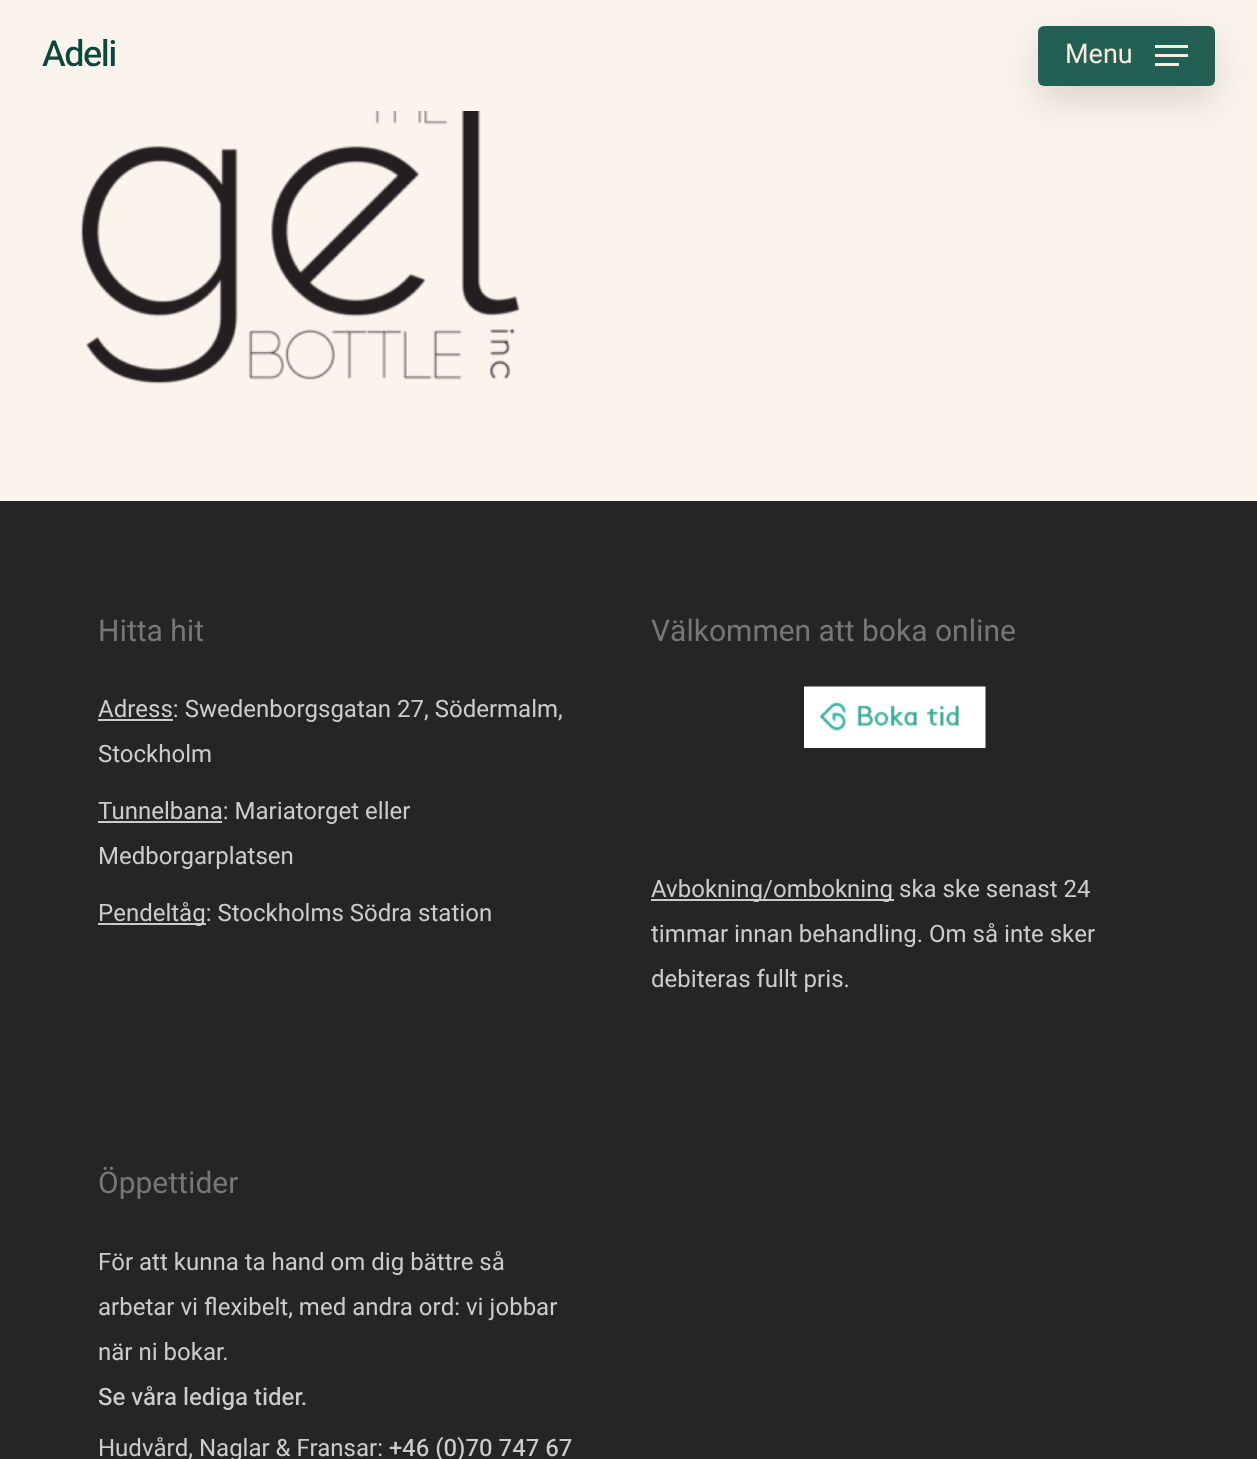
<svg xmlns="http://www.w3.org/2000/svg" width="1257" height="1459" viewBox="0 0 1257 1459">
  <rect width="100%" height="100%" fill="rgb(251,244,236)"/>
  <text x="42" y="66" font-family="Heebo" font-size="36" font-weight="500" letter-spacing="-1.5" fill="rgb(11,71,58)">Adeli</text>
  <rect x="1038" y="41" width="177" height="60" rx="6" fill="rgba(0,0,0,0.13)" filter="blur(19px)"/>
  <rect x="1038" y="26" width="177" height="60" rx="6" fill="rgb(35,96,83)"/>
  <text x="1065" y="63" font-family="Heebo" font-size="27" fill="rgb(248,234,220)">Menu</text>
  <rect x="1155" y="45" width="33" height="3" fill="rgb(248,234,220)"/>
  <rect x="1155" y="63" width="24" height="3" fill="rgb(248,234,220)"/>
  <rect x="1155" y="54" width="33" height="3" fill="rgb(248,234,220)"/>
  <image x="80" y="111" width="440" height="273" href="pic1.png"/>
  <rect x="0" y="501" width="1257" height="958" fill="rgb(37,37,37)"/>
  <text x="98" y="641" font-family="Heebo" font-size="30" fill="rgb(119,119,119)">Hitta hit</text>
  <rect x="98" y="719" width="75" height="2" fill="rgb(204,204,204)"/>
  <g font-family="Heebo" font-size="24" fill="rgb(204,204,204)">
    <text>
      <tspan x="98" y="717">Adress: Swedenborgsgatan 27, Södermalm,</tspan>
      <tspan x="98" y="762">Stockholm</tspan>
    </text>
  </g>
  <rect x="98" y="821" width="124" height="2" fill="rgb(204,204,204)"/>
  <g font-family="Heebo" font-size="24" fill="rgb(204,204,204)">
    <text>
      <tspan x="98" y="819">Tunnelbana: Mariatorget eller</tspan>
      <tspan x="98" y="864">Medborgarplatsen</tspan>
    </text>
  </g>
  <rect x="98" y="923" width="108" height="2" fill="rgb(204,204,204)"/>
  <text x="98" y="921" font-family="Heebo" font-size="24" fill="rgb(204,204,204)">Pendeltåg: Stockholms Södra station</text>
  <text x="651" y="641" font-family="Heebo" font-size="30" fill="rgb(119,119,119)">Välkommen att boka online</text>
  <image x="804" y="686" width="182" height="62" href="pic2.png"/>
  <rect x="651" y="899" width="243" height="2" fill="rgb(204,204,204)"/>
  <g font-family="Heebo" font-size="24" fill="rgb(204,204,204)">
    <text>
      <tspan x="651" y="897">Avbokning/ombokning ska ske senast 24</tspan>
      <tspan x="651" y="942">timmar innan behandling. Om så inte sker</tspan>
      <tspan x="651" y="987">debiteras fullt pris.</tspan>
    </text>
  </g>
  <text x="98" y="1193" font-family="Heebo" font-size="30" fill="rgb(119,119,119)">Öppettider</text>
  <g font-family="Heebo" font-size="24" fill="rgb(204,204,204)">
    <text>
      <tspan x="98" y="1270">För att kunna ta hand om dig bättre så</tspan>
      <tspan x="98" y="1315">arbetar vi flexibelt, med andra ord: vi jobbar</tspan>
      <tspan x="98" y="1360">när ni bokar.</tspan>
    </text>
  </g>
  <text x="98" y="1405" font-family="Heebo" font-size="24" font-weight="500" fill="rgb(204,204,204)">Se våra lediga tider.</text>
  <text x="98" y="1456" font-family="Heebo" font-size="24" fill="rgb(204,204,204)">Hudvård, Naglar &amp; Fransar:</text>
  <text x="389" y="1456" font-family="Heebo" font-size="24" font-weight="500" fill="rgb(204,204,204)">+46 (0)70 747 67</text>
</svg>
